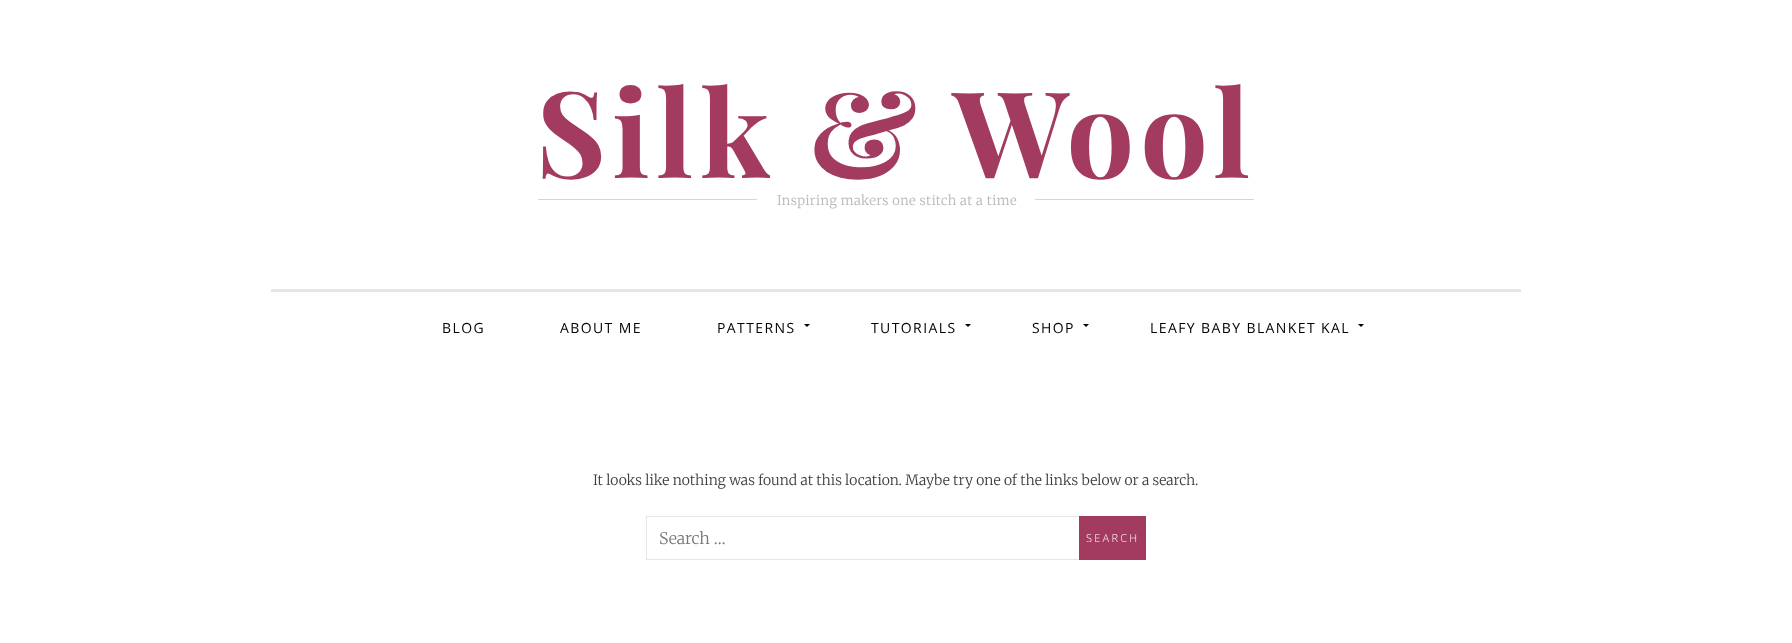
<svg xmlns="http://www.w3.org/2000/svg" width="1792" height="643" viewBox="0 0 1792 643">
  <rect width="100%" height="100%" fill="rgb(255,255,255)"/>
  <text x="536" y="178" font-family="Playfair Display" font-size="120" font-weight="bold" letter-spacing="6" fill="rgb(163,59,97)">Silk &amp; Wool</text>
  <rect x="538" y="199" width="716" height="1" fill="rgb(252,201,176)"/>
  <rect x="757" y="199" width="278" height="1" fill="rgb(255,255,255)"/>
  <text x="777" y="205" font-family="Merriweather" font-size="13" font-weight="300" letter-spacing="0.4" fill="rgb(184,182,183)">Inspiring makers one stitch at a time</text>
  <rect x="271" y="289" width="1250" height="3" fill="rgb(230,230,230)"/>
  <g font-family="Open Sans" font-size="14" letter-spacing="1.4" fill="rgb(2,2,2)">
    <text x="442" y="333">BLOG</text>
    <text x="560" y="333">ABOUT ME</text>
    <text x="717" y="333">PATTERNS</text>
  </g>
  <path d="M804 324H810L807 327Z" fill="rgb(2,2,2)"/>
  <text x="871" y="333" font-family="Open Sans" font-size="14" letter-spacing="1.4" fill="rgb(2,2,2)">TUTORIALS</text>
  <path d="M965 324H971L968 327Z" fill="rgb(2,2,2)"/>
  <text x="1032" y="333" font-family="Open Sans" font-size="14" letter-spacing="1.4" fill="rgb(2,2,2)">SHOP</text>
  <path d="M1083 324H1089L1086 327Z" fill="rgb(2,2,2)"/>
  <text x="1150" y="333" font-family="Open Sans" font-size="14" letter-spacing="1.4" fill="rgb(2,2,2)">LEAFY BABY BLANKET KAL</text>
  <path d="M1358 324H1364L1361 327Z" fill="rgb(2,2,2)"/>
  <text x="593" y="485" font-family="Merriweather" font-size="14" font-weight="300" fill="rgb(64,59,60)">It looks like nothing was found at this location. Maybe try one of the links below or a search.</text>
  <rect x="646.5" y="516.5" width="499" height="43" fill="none" stroke="rgb(230,230,230)"/>
  <text x="659" y="544" font-family="Merriweather" font-size="16" font-weight="300" fill="rgb(117,117,117)">Search …</text>
  <rect x="1079" y="516" width="67" height="44" fill="rgb(163,59,97)"/>
  <text x="1086" y="542" font-family="Open Sans" font-size="11" font-weight="300" letter-spacing="2.25" fill="rgb(255,255,255)">SEARCH</text>
</svg>
